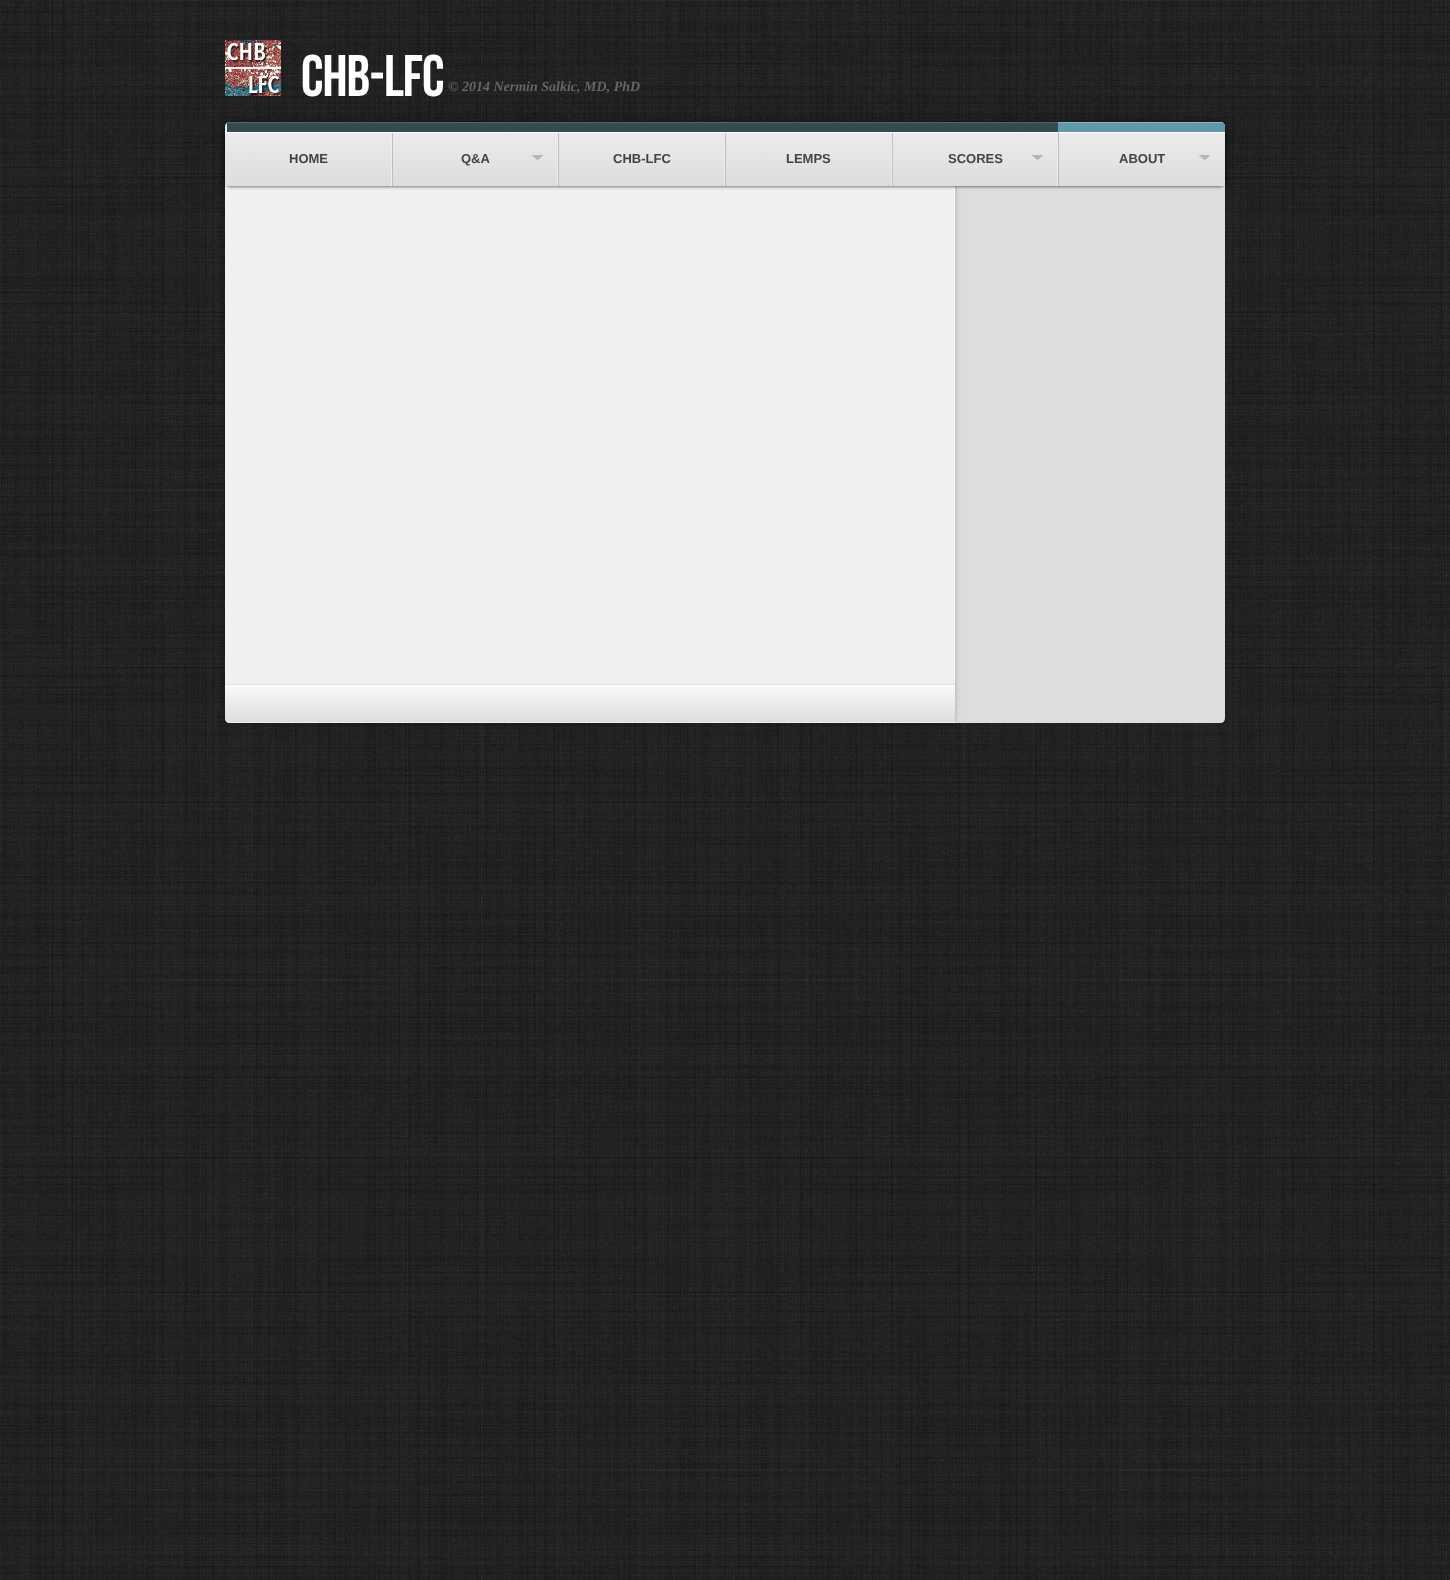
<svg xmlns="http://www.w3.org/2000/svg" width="1450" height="1580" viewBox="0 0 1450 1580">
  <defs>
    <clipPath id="clip1"><path d="M230 122H1220C1223 122 1225 124 1225 127V186H225V127C225 124 227 122 230 122Z"/></clipPath>
    <linearGradient id="g1" gradientUnits="userSpaceOnUse" x1="725" y1="123" x2="725" y2="186"><stop offset="0" stop-color="rgb(255,255,255)" stop-opacity="0.5"/><stop offset="1" stop-color="rgb(255,255,255)" stop-opacity="0"/></linearGradient>
    <linearGradient id="g2" gradientUnits="userSpaceOnUse" x1="590" y1="686" x2="590" y2="722"><stop offset="0" stop-color="rgb(255,255,255)" stop-opacity="0.85"/><stop offset="1" stop-color="rgb(255,255,255)" stop-opacity="0"/></linearGradient>
  </defs>
  <rect width="100%" height="100%" fill="rgb(255,255,255)"/>
  <image x="0" y="0" width="1450" height="1580" href="pic1.png"/>
  <image x="225" y="40" width="56" height="56" href="pic2.png"/>
  <text x="301" y="96" font-family="Bebas Neue" font-size="58.5" letter-spacing="-1" fill="rgb(255,255,255)">CHB-LFC</text>
  <text x="448" y="91" font-family="Liberation Serif" font-size="14" font-weight="bold" font-style="italic" fill="rgb(102,102,102)">© 2014 Nermin Salkic, MD, PhD</text>
  <rect x="225" y="124" width="1000" height="64" rx="5" fill="rgba(0,0,0,0.5)" filter="blur(6px)"/>
  <path d="M225 175H1225V718C1225 721 1223 723 1220 723H230C227 723 225 721 225 718Z" fill="rgb(221,221,221)"/>
  <path d="M225 717C225 720 227 723 230 723H1220C1223 723 1225 720 1225 717C1225 720 1223 722 1220 722H230C227 722 225 720 225 717Z" fill="rgba(255,255,255,0.05)"/>
  <rect x="225" y="176" width="730" height="548" rx="5" fill="rgba(0,0,0,0.25)" filter="blur(2.5px)"/>
  <path d="M225 175H955V723H230C227 723 225 721 225 718Z" fill="rgb(240,240,240)"/>
  <rect x="954" y="186" width="1" height="537" fill="rgb(252,252,252)"/>
  <rect x="225" y="123" width="1000" height="64" rx="5" fill="rgba(0,0,0,0.5)" filter="blur(1.5px)"/>
  <path d="M230 122H1220C1223 122 1225 124 1225 127V186H225V127C225 124 227 122 230 122Z" fill="rgb(221,221,221)"/>
  <g clip-path="url(#clip1)">
    <rect x="225" y="123" width="1000" height="60" fill="url(#g1)"/>
  </g>
  <rect x="228" y="122" width="830" height="1" fill="rgb(82,103,108)"/>
  <path d="M1221 132H225V133H1225V132Z" fill="rgb(255,255,255)"/>
  <rect x="227" y="123" width="831" height="9" fill="rgb(54,75,80)"/>
  <rect x="391" y="132" width="1" height="54" fill="rgb(238,238,238)"/>
  <rect x="391" y="132" width="1" height="1" fill="rgb(255,255,255)"/>
  <text x="289" y="163" font-family="Liberation Sans" font-size="13" font-weight="bold" fill="rgb(68,68,68)">HOME</text>
  <rect x="392" y="132" width="1" height="54" fill="rgb(190,190,190)"/>
  <rect x="557" y="132" width="1" height="54" fill="rgb(238,238,238)"/>
  <rect x="392" y="132" width="166" height="1" fill="rgb(255,255,255)"/>
  <text x="461" y="163" font-family="Liberation Sans" font-size="13" font-weight="bold" fill="rgb(68,68,68)">Q&amp;A</text>
  <image x="532" y="155" width="11" height="5" href="pic3.png"/>
  <rect x="558" y="132" width="1" height="54" fill="rgb(190,190,190)"/>
  <rect x="724" y="132" width="1" height="54" fill="rgb(238,238,238)"/>
  <rect x="558" y="132" width="167" height="1" fill="rgb(255,255,255)"/>
  <text x="613" y="163" font-family="Liberation Sans" font-size="13" font-weight="bold" fill="rgb(68,68,68)">CHB-LFC</text>
  <rect x="725" y="132" width="1" height="54" fill="rgb(190,190,190)"/>
  <rect x="891" y="132" width="1" height="54" fill="rgb(238,238,238)"/>
  <rect x="725" y="132" width="167" height="1" fill="rgb(255,255,255)"/>
  <text x="786" y="163" font-family="Liberation Sans" font-size="13" font-weight="bold" fill="rgb(68,68,68)">LEMPS</text>
  <rect x="892" y="132" width="1" height="54" fill="rgb(190,190,190)"/>
  <rect x="1057" y="132" width="1" height="54" fill="rgb(238,238,238)"/>
  <rect x="892" y="132" width="166" height="1" fill="rgb(255,255,255)"/>
  <text x="948" y="163" font-family="Liberation Sans" font-size="13" font-weight="bold" fill="rgb(68,68,68)">SCORES</text>
  <image x="1032" y="155" width="11" height="5" href="pic3.png"/>
  <rect x="1058" y="132" width="1" height="54" fill="rgb(190,190,190)"/>
  <path d="M1058 122H1220C1223 122 1225 124 1225 127V132H1058Z" fill="rgb(98,153,170)"/>
  <rect x="1058" y="122" width="165" height="1" fill="rgb(131,186,203)"/>
  <text x="1119" y="163" font-family="Liberation Sans" font-size="13" font-weight="bold" fill="rgb(68,68,68)">ABOUT</text>
  <image x="1199" y="155" width="11" height="5" href="pic3.png"/>
  <rect x="225" y="684" width="730" height="1" fill="rgb(227,227,227)"/>
  <path d="M225 685H955V722H230C227 722 225 720 225 717Z" fill="rgb(221,221,221)"/>
  <rect x="225" y="686" width="730" height="35" fill="url(#g2)"/>
  <rect x="225" y="685" width="730" height="1" fill="rgb(255,255,255)"/>
</svg>
